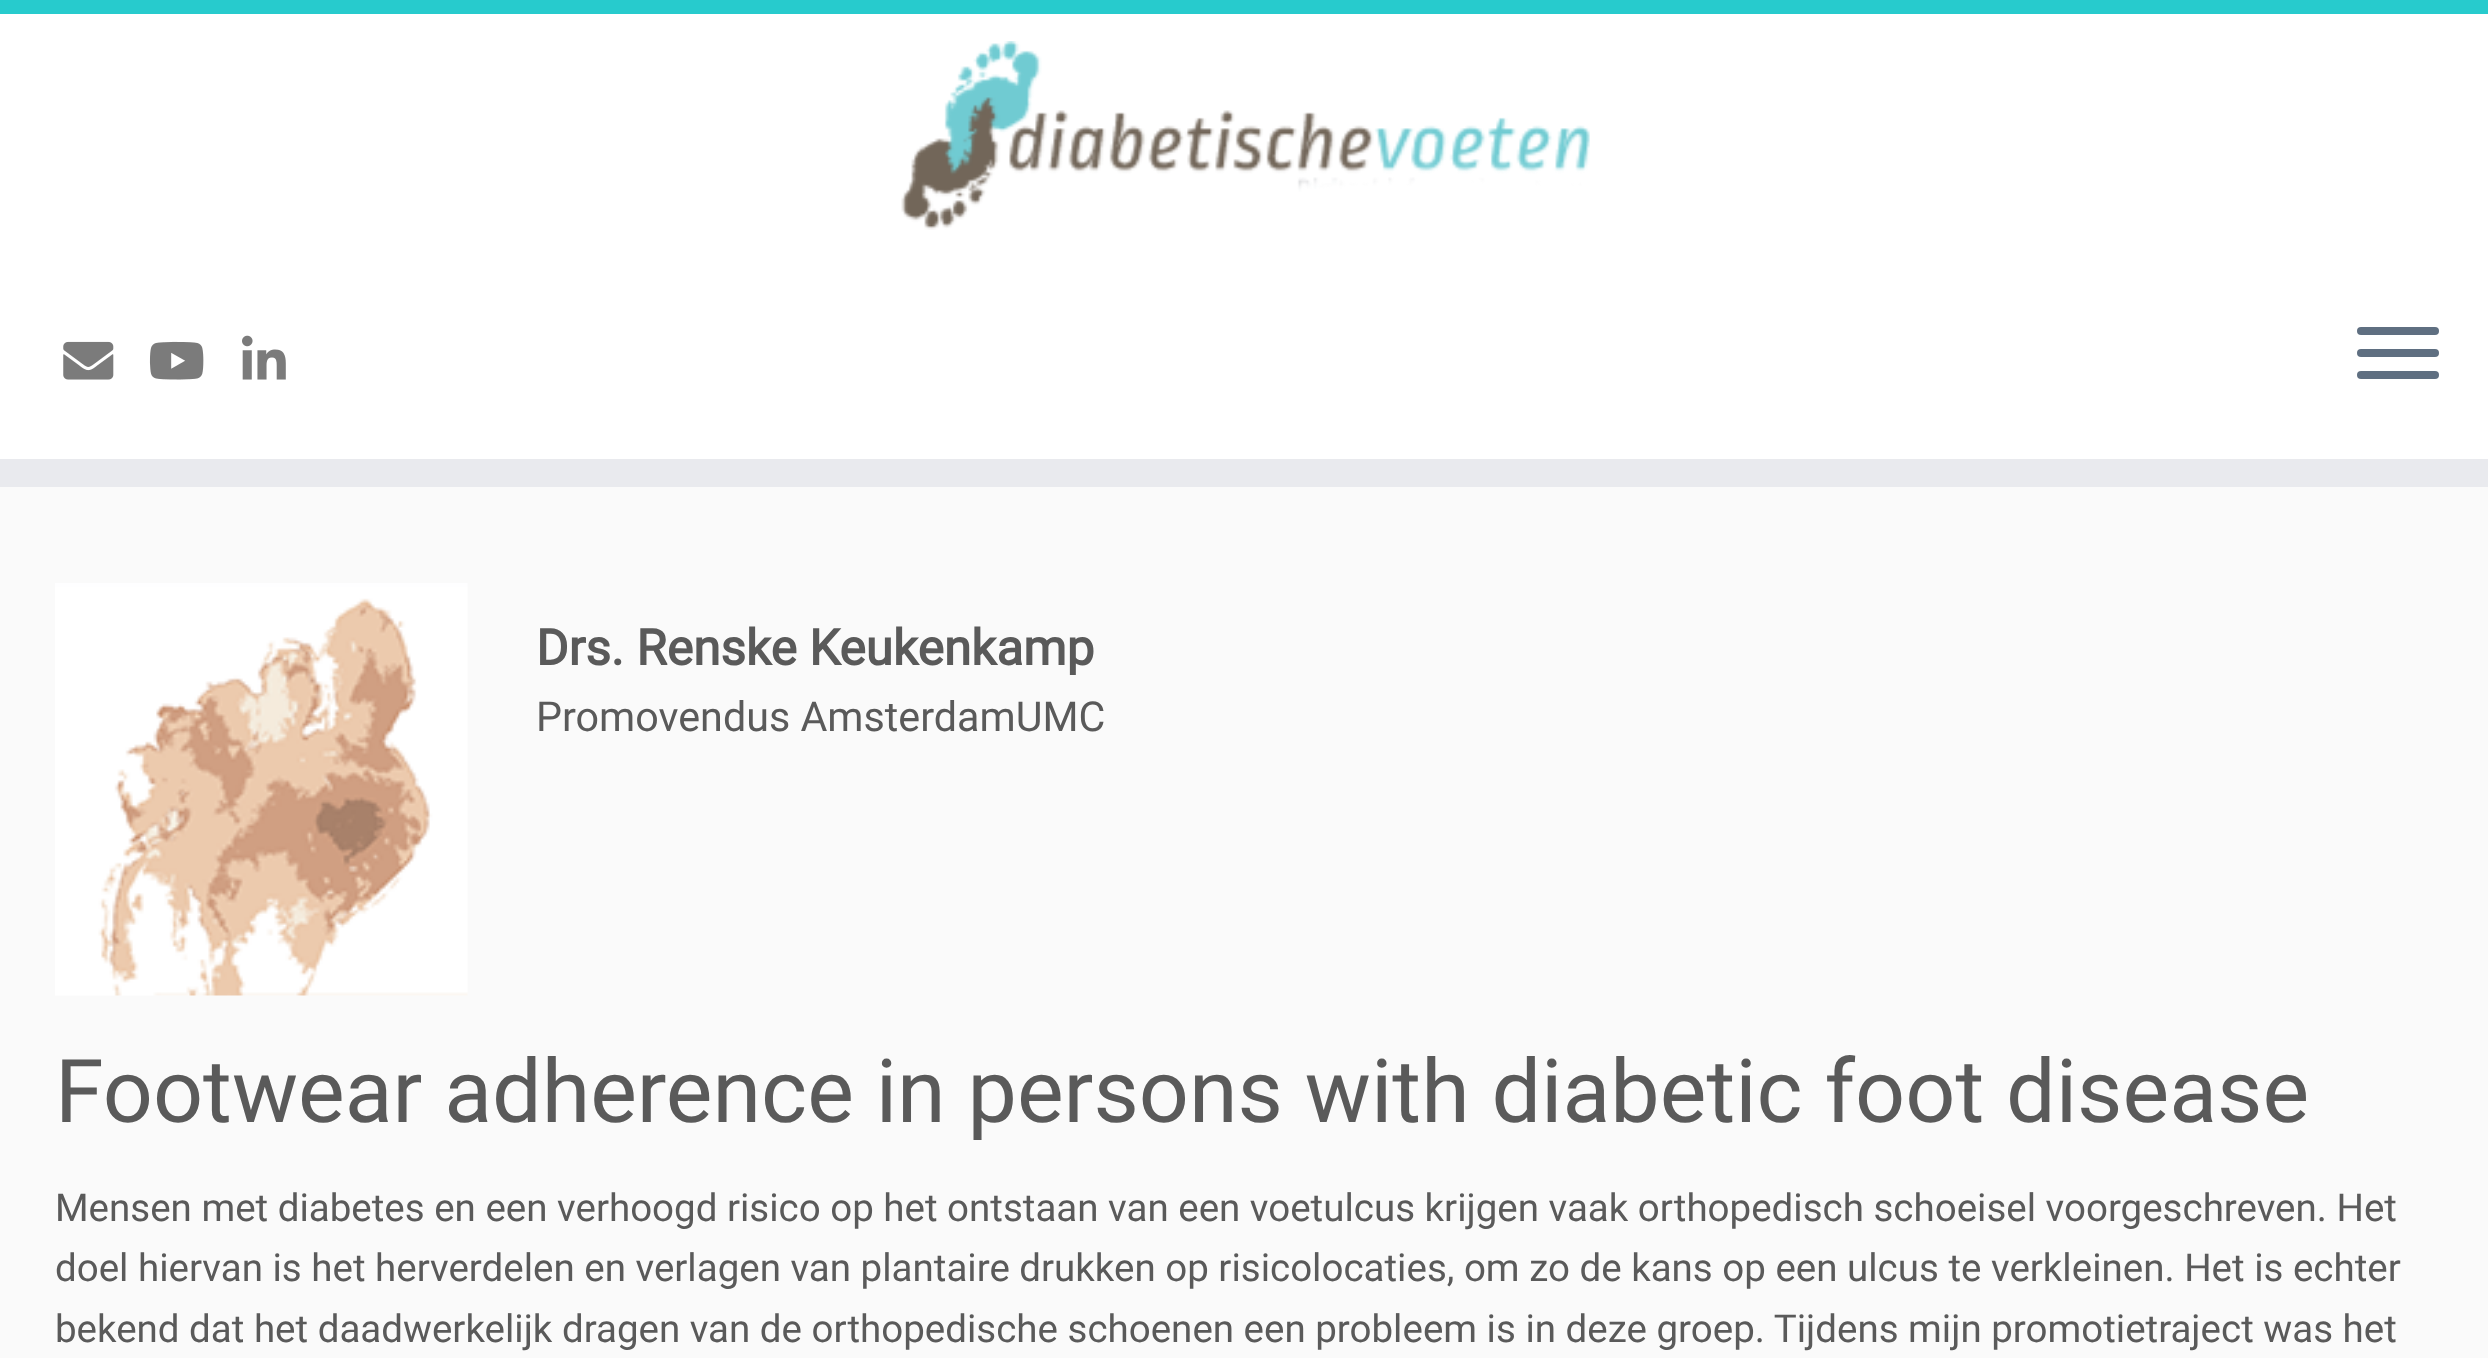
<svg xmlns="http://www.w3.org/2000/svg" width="2488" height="1358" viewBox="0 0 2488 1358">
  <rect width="100%" height="100%" fill="rgb(250,250,250)"/>
  <rect x="0" y="14" width="2488" height="445" fill="rgb(255,255,255)"/>
  <rect x="0" y="0" width="2488" height="14" fill="rgb(39,203,205)"/>
  <rect x="0" y="459" width="2488" height="28" fill="rgb(233,234,238)"/>
  <image x="901" y="41" width="689" height="189" href="pic1.png"/>
  <image x="63" y="341" width="51" height="39" href="pic2.png"/>
  <image x="149" y="341" width="55" height="39" href="pic3.png"/>
  <image x="242" y="335" width="44" height="45" href="pic4.png"/>
  <rect x="2357" y="327" width="82" height="8" rx="4" fill="rgb(95,111,129)"/>
  <rect x="2357" y="349" width="82" height="8" rx="4" fill="rgb(95,111,129)"/>
  <rect x="2357" y="371" width="82" height="8" rx="4" fill="rgb(95,111,129)"/>
  <image x="55" y="583" width="413" height="413" href="pic5.png"/>
  <text x="536" y="665" font-family="Roboto" font-size="49.5" font-weight="bold" fill="rgb(90,90,90)">Drs. Renske Keukenkamp</text>
  <text x="536" y="731" font-family="Roboto" font-size="41.25" fill="rgb(90,90,90)">Promovendus AmsterdamUMC</text>
  <text x="55" y="1122" font-family="Roboto" font-size="88" fill="rgb(90,90,90)">Footwear adherence in persons with diabetic foot disease</text>
  <g font-family="Roboto" font-size="38.5" fill="rgb(90,90,90)">
    <text>
      <tspan x="55" y="1221">Mensen met diabetes en een verhoogd risico op het ontstaan van een voetulcus krijgen vaak orthopedisch schoeisel voorgeschreven. Het</tspan>
      <tspan x="55" y="1281">doel hiervan is het herverdelen en verlagen van plantaire drukken op risicolocaties, om zo de kans op een ulcus te verkleinen. Het is echter</tspan>
      <tspan x="55" y="1342">bekend dat het daadwerkelijk dragen van de orthopedische schoenen een probleem is in deze groep. Tijdens mijn promotietraject was het</tspan>
    </text>
  </g>
</svg>
